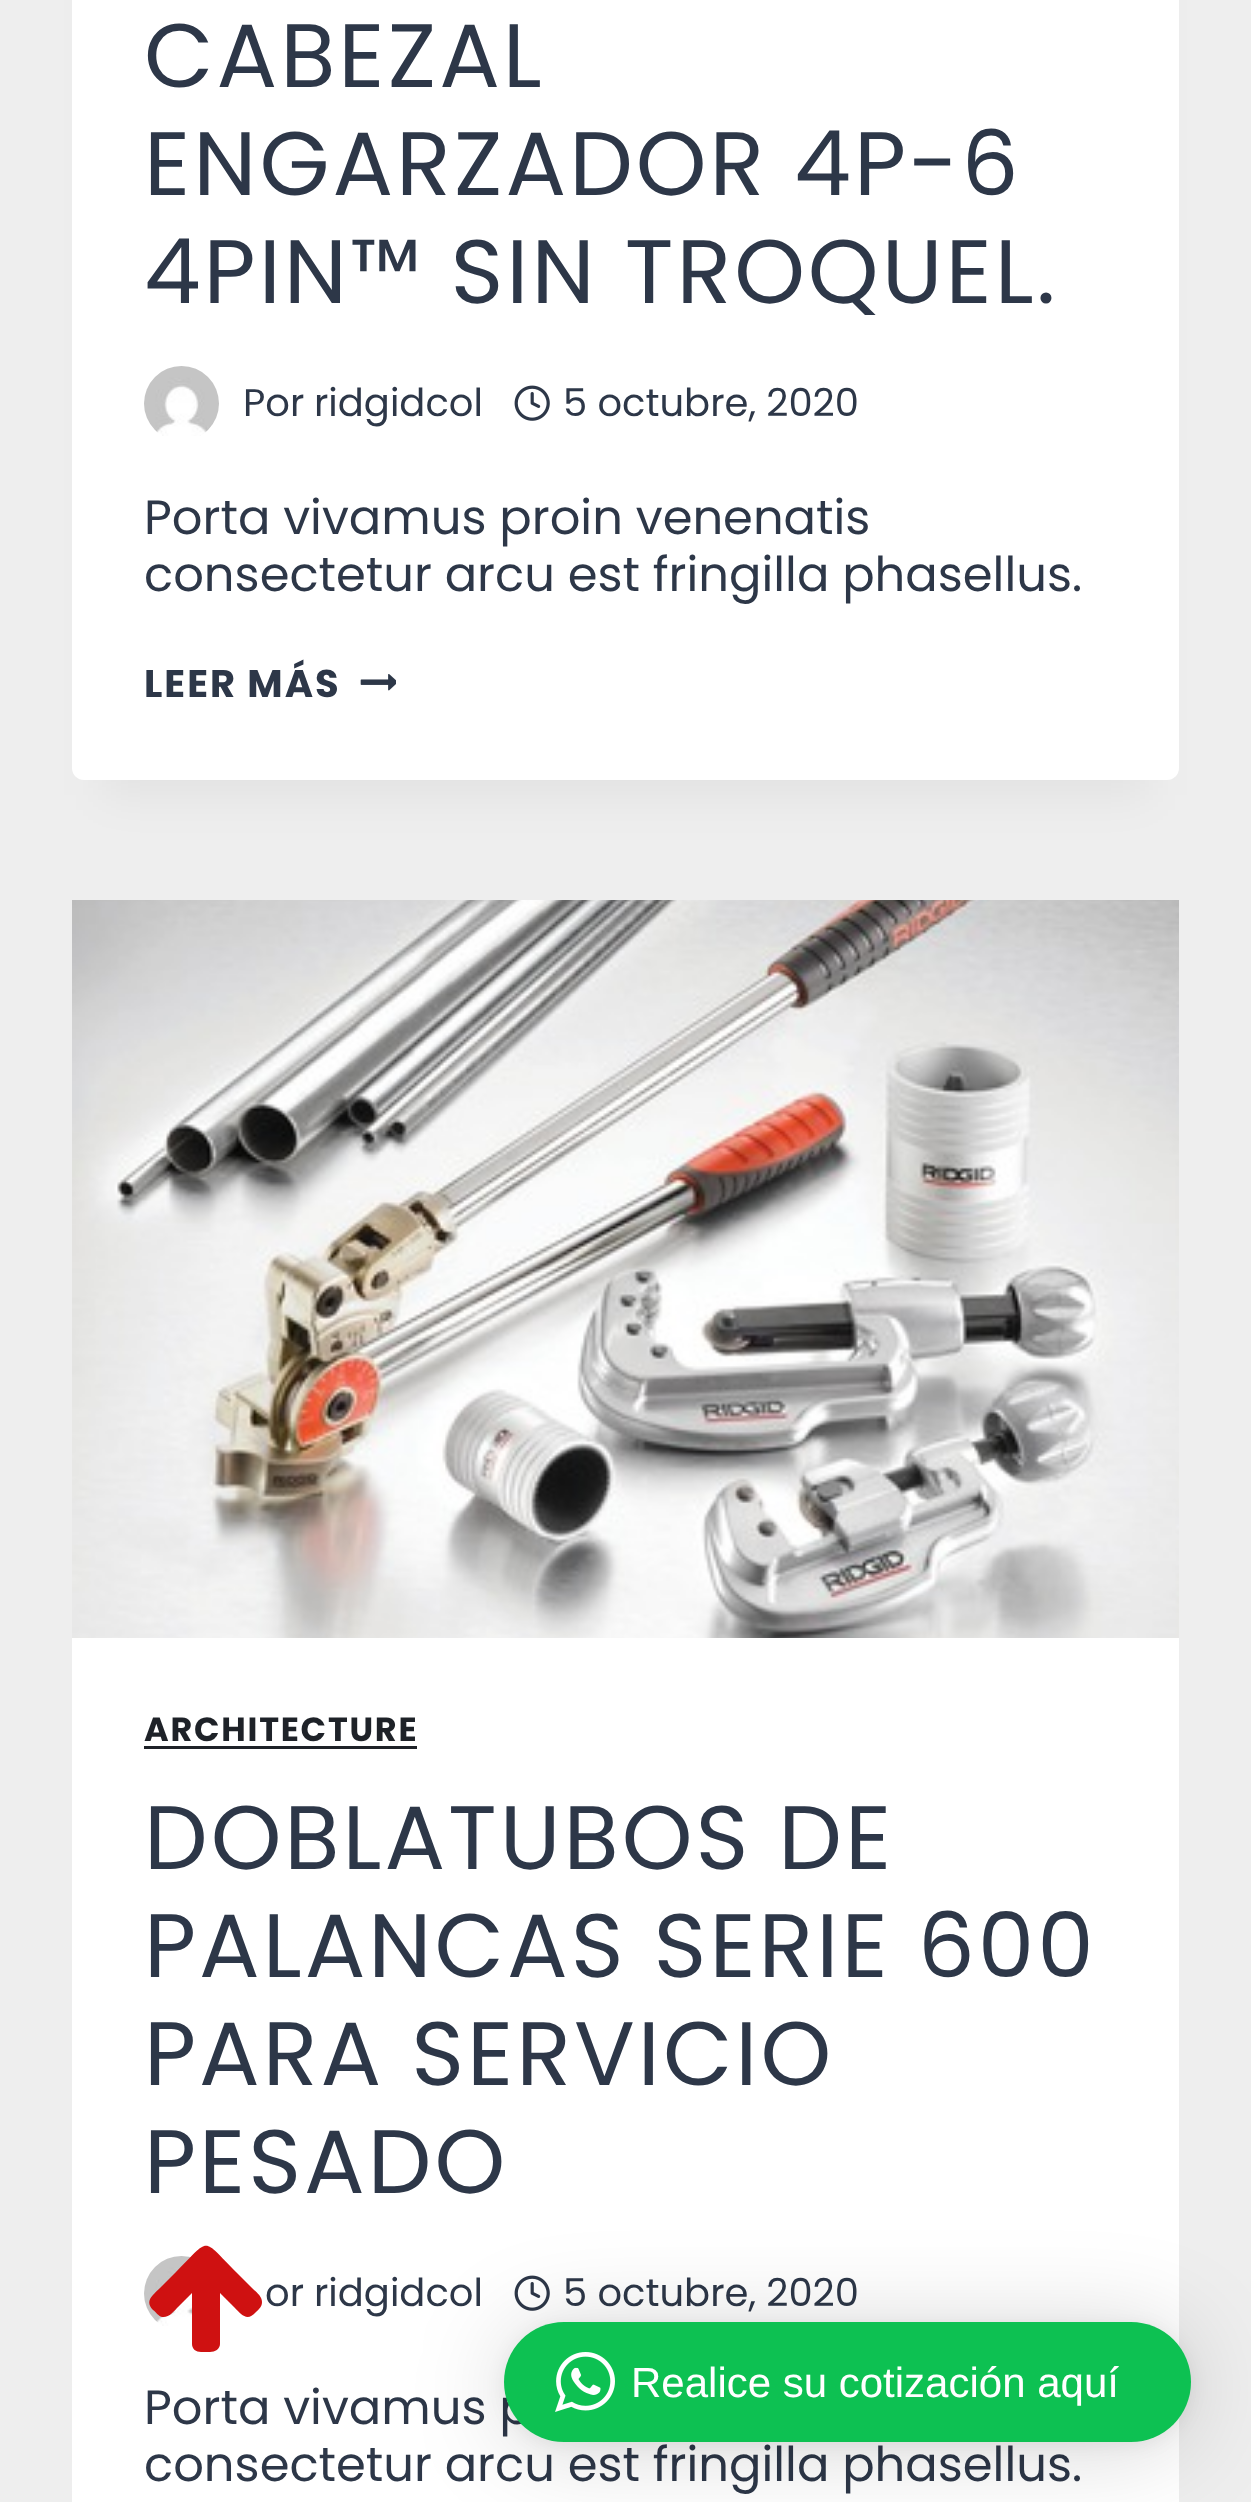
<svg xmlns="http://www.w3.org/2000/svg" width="1251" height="2502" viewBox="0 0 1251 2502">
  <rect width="100%" height="100%" fill="rgb(238,238,238)"/>
  <rect x="102" y="-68" width="1047" height="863" fill="rgba(0,0,0,0.05)" filter="blur(22.5px)"/>
  <rect x="72" y="-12" width="1107" height="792" rx="12" fill="rgb(255,255,255)"/>
  <g font-family="Poppins" font-size="90" letter-spacing="3" fill="rgb(45,55,72)">
    <text>
      <tspan x="144" y="87">CABEZAL</tspan>
      <tspan x="144" y="195">ENGARZADOR 4P-6</tspan>
      <tspan x="144" y="303">4PIN™ SIN TROQUEL.</tspan>
    </text>
  </g>
  <image x="144" y="366" width="75" height="70" href="pic1.png"/>
  <g font-family="Poppins" font-size="38.5" fill="rgb(45,55,72)">
    <text x="243" y="416">Por</text>
    <text x="314" y="416">ridgidcol</text>
  </g>
  <image x="514" y="385" width="36" height="36" href="pic2.png"/>
  <text x="563" y="416" font-family="Poppins" font-size="38.5" fill="rgb(45,55,72)">5 octubre, 2020</text>
  <g font-family="Poppins" font-size="48" fill="rgb(45,55,72)">
    <text>
      <tspan x="144" y="534">Porta vivamus proin venenatis</tspan>
      <tspan x="144" y="591">consectetur arcu est fringilla phasellus.</tspan>
    </text>
  </g>
  <text x="144" y="697" font-family="Poppins" font-size="38.5" font-weight="bold" letter-spacing="2" fill="rgb(45,55,72)">LEER MÁS</text>
  <image x="360" y="674" width="36" height="17" href="pic3.png"/>
  <rect x="72" y="1638" width="1107" height="864" fill="rgb(255,255,255)"/>
  <image x="72" y="900" width="1107" height="738" href="pic4.png"/>
  <text x="144" y="1741" font-family="Poppins" font-size="33.5" font-weight="bold" letter-spacing="1.75" fill="rgb(30,34,40)">ARCHITECTURE</text>
  <rect x="144" y="1746" width="273" height="3" fill="rgb(30,34,40)"/>
  <g font-family="Poppins" font-size="90" letter-spacing="3" fill="rgb(45,55,72)">
    <text>
      <tspan x="144" y="1869">DOBLATUBOS DE</tspan>
      <tspan x="144" y="1977">PALANCAS SERIE 600</tspan>
      <tspan x="144" y="2085">PARA SERVICIO</tspan>
      <tspan x="144" y="2193">PESADO</tspan>
    </text>
  </g>
  <image x="144" y="2256" width="48" height="70" href="pic5.png"/>
  <g font-family="Poppins" font-size="38.5" fill="rgb(45,55,72)">
    <text x="265" y="2306">or</text>
    <text x="314" y="2306">ridgidcol</text>
  </g>
  <image x="514" y="2275" width="36" height="36" href="pic2.png"/>
  <text x="563" y="2306" font-family="Poppins" font-size="38.5" fill="rgb(45,55,72)">5 octubre, 2020</text>
  <g font-family="Poppins" font-size="48" fill="rgb(45,55,72)">
    <text>
      <tspan x="144" y="2424">Porta vivamus p</tspan>
      <tspan x="144" y="2481">consectetur arcu est fringilla phasellus.</tspan>
    </text>
  </g>
  <path d="M262 2302C262 2307 259 2309 256 2312C247 2322 242 2315 234 2307L220 2293V2344C220 2349 215 2352 210 2352H201C196 2352 192 2349 192 2344V2293L178 2307C174 2311 169 2318 162 2317C158 2316 156 2312 153 2310C144 2301 153 2295 160 2288L176 2272C211 2237 201 2237 236 2272L252 2288C255 2291 262 2296 262 2302Z" fill="rgb(207,17,17)"/>
  <rect x="504" y="2328" width="687" height="120" rx="60" fill="rgba(0,0,0,0.16)" filter="blur(48px)"/>
  <rect x="504" y="2325" width="687" height="120" rx="60" fill="rgba(0,0,0,0.06)" filter="blur(9px)"/>
  <rect x="504" y="2322" width="687" height="120" rx="60" fill="rgb(13,193,82)"/>
  <image x="555" y="2352" width="60" height="60" href="pic6.png"/>
  <text x="631" y="2397" font-family="Liberation Sans" font-size="42" fill="rgb(255,255,255)">Realice su cotización aquí</text>
</svg>
